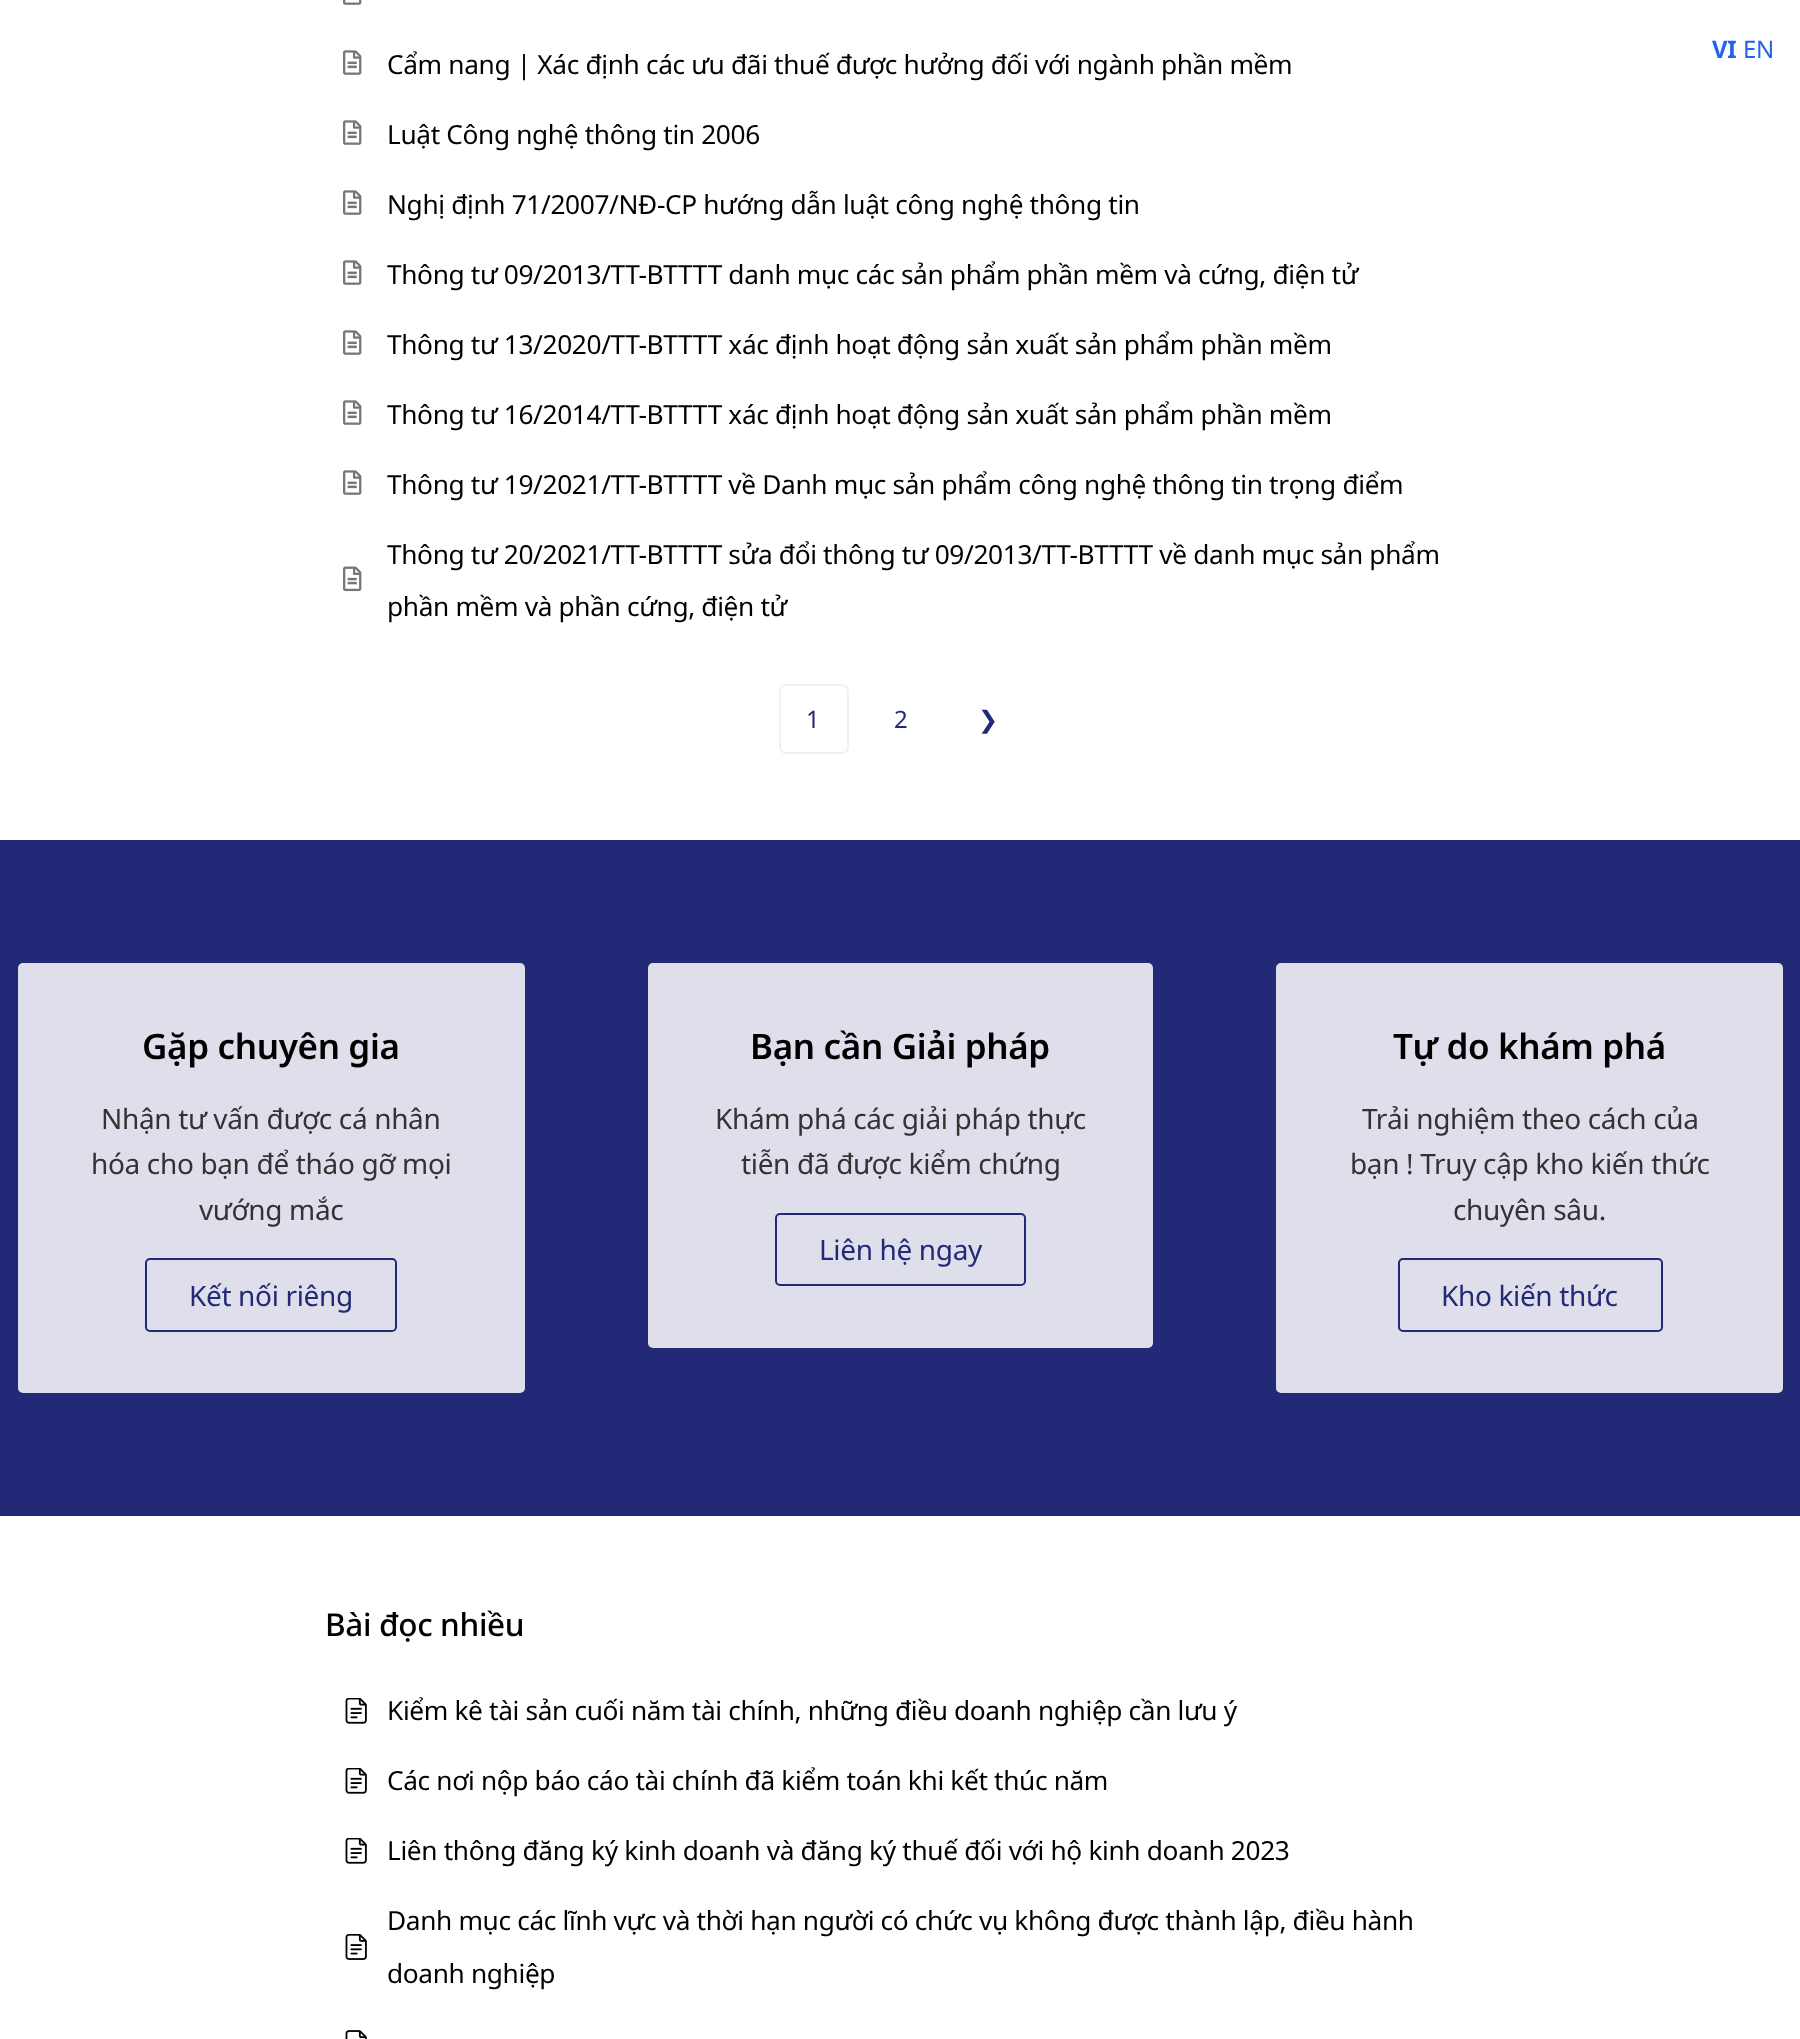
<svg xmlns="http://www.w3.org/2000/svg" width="1800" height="2039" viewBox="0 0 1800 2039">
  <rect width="100%" height="100%" fill="rgb(255,255,255)"/>
  <text x="1712" y="58" font-family="Noto Sans" font-size="24" font-weight="bold" letter-spacing="-0.35" fill="rgb(37,99,235)">VI</text>
  <text x="1743" y="58" font-family="Noto Sans" font-size="24" letter-spacing="-0.35" fill="rgb(37,99,235)">EN</text>
  <image x="343" y="0" width="19" height="5" href="pic1.png"/>
  <image x="343" y="50" width="19" height="25" href="pic2.png"/>
  <text x="387" y="74" font-family="Noto Sans" font-size="26.25" letter-spacing="-0.35" fill="rgb(0,0,0)">Cẩm nang | Xác định các ưu đãi thuế được hưởng đối với ngành phần mềm</text>
  <image x="343" y="120" width="19" height="25" href="pic2.png"/>
  <text x="387" y="144" font-family="Noto Sans" font-size="26.25" letter-spacing="-0.35" fill="rgb(0,0,0)">Luật Công nghệ thông tin 2006</text>
  <image x="343" y="190" width="19" height="25" href="pic2.png"/>
  <text x="387" y="214" font-family="Noto Sans" font-size="26.25" letter-spacing="-0.35" fill="rgb(0,0,0)">Nghị định 71/2007/NĐ-CP hướng dẫn luật công nghệ thông tin</text>
  <image x="343" y="260" width="19" height="25" href="pic2.png"/>
  <text x="387" y="284" font-family="Noto Sans" font-size="26.25" letter-spacing="-0.35" fill="rgb(0,0,0)">Thông tư 09/2013/TT-BTTTT danh mục các sản phẩm phần mềm và cứng, điện tử</text>
  <image x="343" y="330" width="19" height="25" href="pic2.png"/>
  <text x="387" y="354" font-family="Noto Sans" font-size="26.25" letter-spacing="-0.35" fill="rgb(0,0,0)">Thông tư 13/2020/TT-BTTTT xác định hoạt động sản xuất sản phẩm phần mềm</text>
  <image x="343" y="400" width="19" height="25" href="pic2.png"/>
  <text x="387" y="424" font-family="Noto Sans" font-size="26.25" letter-spacing="-0.35" fill="rgb(0,0,0)">Thông tư 16/2014/TT-BTTTT xác định hoạt động sản xuất sản phẩm phần mềm</text>
  <image x="343" y="470" width="19" height="25" href="pic2.png"/>
  <text x="387" y="494" font-family="Noto Sans" font-size="26.25" letter-spacing="-0.35" fill="rgb(0,0,0)">Thông tư 19/2021/TT-BTTTT về Danh mục sản phẩm công nghệ thông tin trọng điểm</text>
  <image x="343" y="566" width="19" height="26" href="pic3.png"/>
  <g font-family="Noto Sans" font-size="26.25" letter-spacing="-0.35" fill="rgb(0,0,0)">
    <text>
      <tspan x="387" y="564">Thông tư 20/2021/TT-BTTTT sửa đổi thông tư 09/2013/TT-BTTTT về danh mục sản phẩm</tspan>
      <tspan x="387" y="616">phần mềm và phần cứng, điện tử</tspan>
    </text>
  </g>
  <rect x="780" y="685" width="68" height="68" rx="6" fill="none" stroke="rgb(241,241,241)" stroke-width="2"/>
  <g font-family="Noto Sans" font-size="24" letter-spacing="-0.35" fill="rgb(34,42,119)">
    <text x="806" y="728">1</text>
    <text x="894" y="728">2</text>
  </g>
  <text x="978" y="728" font-family="DejaVu Sans" font-size="24" letter-spacing="-0.35" fill="rgb(34,42,119)">❯</text>
  <rect x="0" y="840" width="1800" height="676" fill="rgb(34,42,119)"/>
  <rect x="18" y="963" width="507" height="430" rx="5" fill="rgb(222,223,235)"/>
  <text x="142" y="1059" font-family="Noto Sans" font-size="35" font-weight="600" letter-spacing="-0.35" fill="rgb(0,0,0)">Gặp chuyên gia</text>
  <g font-family="Noto Sans" font-size="28" letter-spacing="-0.35" fill="rgb(51,51,51)">
    <text x="101" y="1129">Nhận tư vấn được cá nhân</text>
    <text x="91" y="1174">hóa cho bạn để tháo gỡ mọi</text>
    <text x="199" y="1220">vướng mắc</text>
  </g>
  <rect x="146" y="1259" width="250" height="72" rx="4" fill="none" stroke="rgb(34,42,119)" stroke-width="2"/>
  <text x="189" y="1306" font-family="Noto Sans" font-size="28" letter-spacing="-0.35" fill="rgb(34,42,119)">Kết nối riêng</text>
  <rect x="648" y="963" width="505" height="385" rx="5" fill="rgb(222,223,235)"/>
  <text x="750" y="1059" font-family="Noto Sans" font-size="35" font-weight="600" letter-spacing="-0.35" fill="rgb(0,0,0)">Bạn cần Giải pháp</text>
  <g font-family="Noto Sans" font-size="28" letter-spacing="-0.35" fill="rgb(51,51,51)">
    <text x="715" y="1129">Khám phá các giải pháp thực</text>
    <text x="741" y="1174">tiễn đã được kiểm chứng</text>
  </g>
  <rect x="776" y="1214" width="249" height="71" rx="4" fill="none" stroke="rgb(34,42,119)" stroke-width="2"/>
  <text x="819" y="1260" font-family="Noto Sans" font-size="28" letter-spacing="-0.35" fill="rgb(34,42,119)">Liên hệ ngay</text>
  <rect x="1276" y="963" width="507" height="430" rx="5" fill="rgb(222,223,235)"/>
  <text x="1393" y="1059" font-family="Noto Sans" font-size="35" font-weight="600" letter-spacing="-0.35" fill="rgb(0,0,0)">Tự do khám phá</text>
  <g font-family="Noto Sans" font-size="28" letter-spacing="-0.35" fill="rgb(51,51,51)">
    <text x="1362" y="1129">Trải nghiệm theo cách của</text>
    <text x="1350" y="1174">bạn ! Truy cập kho kiến thức</text>
    <text x="1453" y="1220">chuyên sâu.</text>
  </g>
  <rect x="1399" y="1259" width="263" height="72" rx="4" fill="none" stroke="rgb(34,42,119)" stroke-width="2"/>
  <text x="1441" y="1306" font-family="Noto Sans" font-size="28" letter-spacing="-0.35" fill="rgb(34,42,119)">Kho kiến thức</text>
  <text x="325" y="1636" font-family="Noto Sans" font-size="31.5" font-weight="500" letter-spacing="-0.35" fill="rgb(0,0,0)">Bài đọc nhiều</text>
  <image x="345" y="1698" width="22" height="26" href="pic4.png"/>
  <text x="387" y="1720" font-family="Noto Sans" font-size="26.25" letter-spacing="-0.35" fill="rgb(0,0,0)">Kiểm kê tài sản cuối năm tài chính, những điều doanh nghiệp cần lưu ý</text>
  <image x="345" y="1768" width="22" height="26" href="pic4.png"/>
  <text x="387" y="1790" font-family="Noto Sans" font-size="26.25" letter-spacing="-0.35" fill="rgb(0,0,0)">Các nơi nộp báo cáo tài chính đã kiểm toán khi kết thúc năm</text>
  <image x="345" y="1838" width="22" height="26" href="pic4.png"/>
  <text x="387" y="1860" word-spacing="0.1" font-family="Noto Sans" font-size="26.25" letter-spacing="-0.35" fill="rgb(0,0,0)">Liên thông đăng ký kinh doanh và đăng ký thuế đối với hộ kinh doanh 2023</text>
  <image x="345" y="1934" width="22" height="26" href="pic5.png"/>
  <g font-family="Noto Sans" font-size="26.25" letter-spacing="-0.35" fill="rgb(0,0,0)">
    <text x="387" y="1930">Danh mục các lĩnh vực và thời hạn người có chức vụ không được thành lập, điều hành</text>
    <text x="387" y="1983">doanh nghiệp</text>
  </g>
  <image x="345" y="2030" width="22" height="9" href="pic6.png"/>
</svg>
